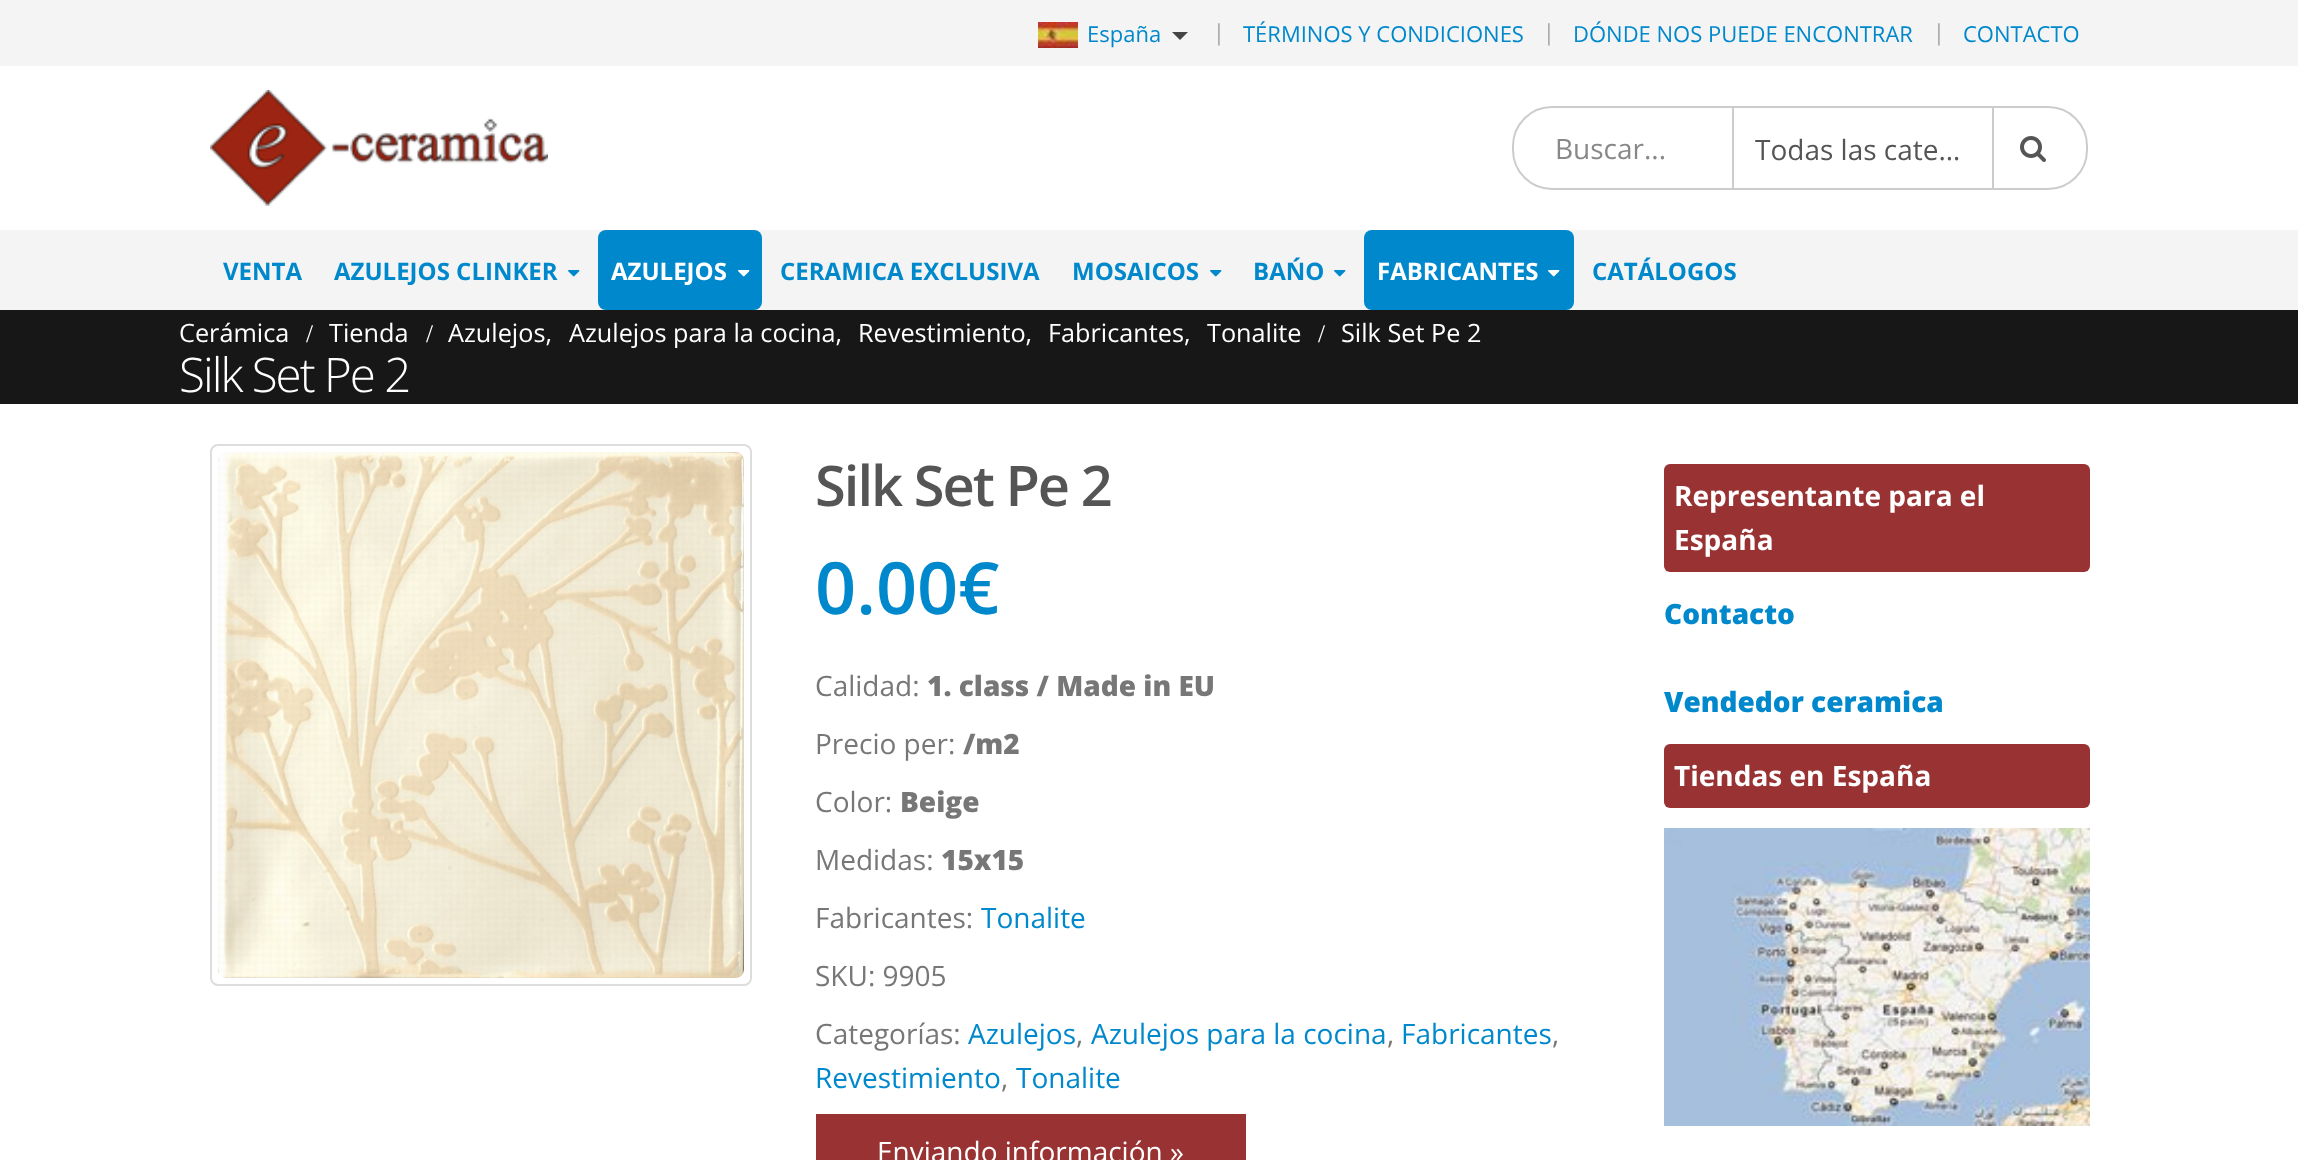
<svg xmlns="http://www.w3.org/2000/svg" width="2298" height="1160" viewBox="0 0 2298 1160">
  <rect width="100%" height="100%" fill="rgb(255,255,255)"/>
  <rect x="0" y="0" width="2298" height="310" fill="rgb(244,244,244)"/>
  <image x="1038" y="22" width="40" height="26" href="pic1.png"/>
  <text x="1087" y="42" font-family="Open Sans" font-size="22" fill="rgb(0,136,204)">España</text>
  <path d="M1172 32H1188L1180 40Z" fill="rgb(68,68,68)"/>
  <text x="1213" y="40" font-family="Open Sans" font-size="22" font-weight="300" fill="rgb(119,119,119)">|</text>
  <text x="1243" y="42" font-family="Open Sans" font-size="22" fill="rgb(0,136,204)">TÉRMINOS Y CONDICIONES</text>
  <text x="1543" y="40" font-family="Open Sans" font-size="22" font-weight="300" fill="rgb(119,119,119)">|</text>
  <text x="1573" y="42" font-family="Open Sans" font-size="22" fill="rgb(0,136,204)">DÓNDE NOS PUEDE ENCONTRAR</text>
  <text x="1933" y="40" font-family="Open Sans" font-size="22" font-weight="300" fill="rgb(119,119,119)">|</text>
  <text x="1963" y="42" font-family="Open Sans" font-size="22" fill="rgb(0,136,204)">CONTACTO</text>
  <rect x="0" y="66" width="2298" height="164" fill="rgb(255,255,255)"/>
  <image x="210" y="90" width="338" height="116" href="pic2.png"/>
  <rect x="1513" y="107" width="574" height="82" rx="39" fill="none" stroke="rgb(204,204,204)" stroke-width="2"/>
  <rect x="1732" y="108" width="2" height="80" fill="rgb(204,204,204)"/>
  <text x="1555" y="159" font-family="Open Sans" font-size="28" fill="rgb(136,136,136)">Buscar...</text>
  <rect x="1992" y="108" width="2" height="80" fill="rgb(204,204,204)"/>
  <text x="1755" y="160" font-family="Open Sans" font-size="28" fill="rgb(85,85,85)">Todas las cate…</text>
  <image x="2020" y="136" width="26" height="26" href="pic3.png"/>
  <g font-family="Open Sans" font-size="24" font-weight="bold" fill="rgb(0,136,204)">
    <text x="223" y="280">VENTA</text>
    <text x="334" y="280">AZULEJOS CLINKER</text>
  </g>
  <image x="568" y="270" width="12" height="7" href="pic4.png"/>
  <rect x="598" y="230" width="164" height="80" rx="8" fill="rgb(0,136,204)"/>
  <text x="611" y="280" font-family="Open Sans" font-size="24" font-weight="bold" fill="rgb(255,255,255)">AZULEJOS</text>
  <image x="738" y="270" width="12" height="7" href="pic5.png"/>
  <g font-family="Open Sans" font-size="24" font-weight="bold" fill="rgb(0,136,204)">
    <text x="780" y="280">CERAMICA EXCLUSIVA</text>
    <text x="1072" y="280">MOSAICOS</text>
  </g>
  <image x="1210" y="270" width="12" height="7" href="pic4.png"/>
  <text x="1253" y="280" font-family="Open Sans" font-size="24" font-weight="bold" fill="rgb(0,136,204)">BAŃO</text>
  <image x="1334" y="270" width="12" height="7" href="pic4.png"/>
  <rect x="1364" y="230" width="210" height="80" rx="8" fill="rgb(0,136,204)"/>
  <text x="1377" y="280" font-family="Open Sans" font-size="24" font-weight="bold" fill="rgb(255,255,255)">FABRICANTES</text>
  <image x="1548" y="270" width="12" height="7" href="pic5.png"/>
  <text x="1592" y="280" font-family="Open Sans" font-size="24" font-weight="bold" fill="rgb(0,136,204)">CATÁLOGOS</text>
  <rect x="0" y="310" width="2298" height="94" fill="rgb(23,23,23)"/>
  <text x="179" y="342" font-family="Open Sans" font-size="25.25" fill="rgb(255,255,255)">Cerámica</text>
  <text x="306" y="342" font-family="Liberation Serif" font-size="25.25" fill="rgb(255,255,255)">/</text>
  <text x="329" y="342" font-family="Open Sans" font-size="25.25" fill="rgb(255,255,255)">Tienda</text>
  <text x="426" y="342" font-family="Liberation Serif" font-size="25.25" fill="rgb(255,255,255)">/</text>
  <g font-family="Open Sans" font-size="25.25" fill="rgb(255,255,255)">
    <text x="448" y="342">Azulejos,</text>
    <text x="569" y="342">Azulejos para la cocina,</text>
    <text x="858" y="342">Revestimiento,</text>
    <text x="1048" y="342">Fabricantes,</text>
    <text x="1207" y="342">Tonalite</text>
  </g>
  <text x="1318" y="342" font-family="Liberation Serif" font-size="25.25" fill="rgb(255,255,255)">/</text>
  <text x="1341" y="342" font-family="Open Sans" font-size="25.25" fill="rgb(255,255,255)">Silk Set Pe 2</text>
  <text x="179" y="392" font-family="Open Sans" font-size="47.5" font-weight="300" letter-spacing="-2" fill="rgb(255,255,255)">Silk Set Pe 2</text>
  <rect x="211" y="445" width="540" height="540" rx="7" fill="none" stroke="rgb(221,221,221)" stroke-width="2"/>
  <image x="218" y="452" width="526" height="526" href="pic6.png"/>
  <text x="815" y="506" font-family="Open Sans" font-size="56" font-weight="600" letter-spacing="-2" fill="rgb(85,85,85)">Silk Set Pe 2</text>
  <text x="815" y="614" font-family="Open Sans" font-size="72" font-weight="600" fill="rgb(0,136,204)">0.00€</text>
  <text x="815" y="696" font-family="Open Sans" font-size="28" fill="rgb(119,119,119)">Calidad:</text>
  <text x="927" y="696" font-family="Open Sans" font-size="28" font-weight="800" fill="rgb(119,119,119)">1. class / Made in EU</text>
  <text x="815" y="754" font-family="Open Sans" font-size="28" fill="rgb(119,119,119)">Precio per:</text>
  <text x="963" y="754" font-family="Open Sans" font-size="28" font-weight="800" fill="rgb(119,119,119)">/m2</text>
  <text x="815" y="812" font-family="Open Sans" font-size="28" fill="rgb(119,119,119)">Color:</text>
  <text x="900" y="812" font-family="Open Sans" font-size="28" font-weight="800" fill="rgb(119,119,119)">Beige</text>
  <text x="815" y="870" font-family="Open Sans" font-size="28" fill="rgb(119,119,119)">Medidas:</text>
  <text x="941" y="870" font-family="Open Sans" font-size="28" font-weight="800" fill="rgb(119,119,119)">15x15</text>
  <text x="815" y="928" font-family="Open Sans" font-size="28" fill="rgb(119,119,119)">Fabricantes:</text>
  <text x="981" y="928" font-family="Open Sans" font-size="28" fill="rgb(0,136,204)">Tonalite</text>
  <g font-family="Open Sans" font-size="28" fill="rgb(119,119,119)">
    <text x="815" y="986">SKU: 9905</text>
    <text x="815" y="1044">Categorías:</text>
  </g>
  <text x="968" y="1044" font-family="Open Sans" font-size="28" fill="rgb(0,136,204)">Azulejos</text>
  <text x="1076" y="1044" font-family="Open Sans" font-size="28" fill="rgb(119,119,119)">,</text>
  <text x="1091" y="1044" font-family="Open Sans" font-size="28" fill="rgb(0,136,204)">Azulejos para la cocina</text>
  <text x="1387" y="1044" font-family="Open Sans" font-size="28" fill="rgb(119,119,119)">,</text>
  <text x="1401" y="1044" font-family="Open Sans" font-size="28" fill="rgb(0,136,204)">Fabricantes</text>
  <text x="1552" y="1044" font-family="Open Sans" font-size="28" fill="rgb(119,119,119)">,</text>
  <text x="815" y="1088" font-family="Open Sans" font-size="28" fill="rgb(0,136,204)">Revestimiento</text>
  <text x="1001" y="1088" font-family="Open Sans" font-size="28" fill="rgb(119,119,119)">,</text>
  <text x="1016" y="1088" font-family="Open Sans" font-size="28" fill="rgb(0,136,204)">Tonalite</text>
  <rect x="816" y="1114" width="430" height="46" fill="rgb(153,51,51)"/>
  <text x="877" y="1162" font-family="Open Sans" font-size="28" fill="rgb(255,255,255)">Enviando información »</text>
  <rect x="1664" y="464" width="426" height="108" rx="6" fill="rgb(153,51,51)"/>
  <g font-family="Open Sans" font-size="28" font-weight="bold" fill="rgb(255,255,255)">
    <text>
      <tspan x="1674" y="506">Representante para el</tspan>
      <tspan x="1674" y="550">España</tspan>
    </text>
  </g>
  <g font-family="Open Sans" font-size="28" font-weight="800" fill="rgb(0,136,204)">
    <text x="1664" y="624">Contacto</text>
    <text x="1664" y="712">Vendedor ceramica</text>
  </g>
  <rect x="1664" y="744" width="426" height="64" rx="6" fill="rgb(153,51,51)"/>
  <text x="1674" y="786" font-family="Open Sans" font-size="28" font-weight="bold" fill="rgb(255,255,255)">Tiendas en España</text>
  <image x="1664" y="828" width="426" height="298" href="pic7.png"/>
</svg>
